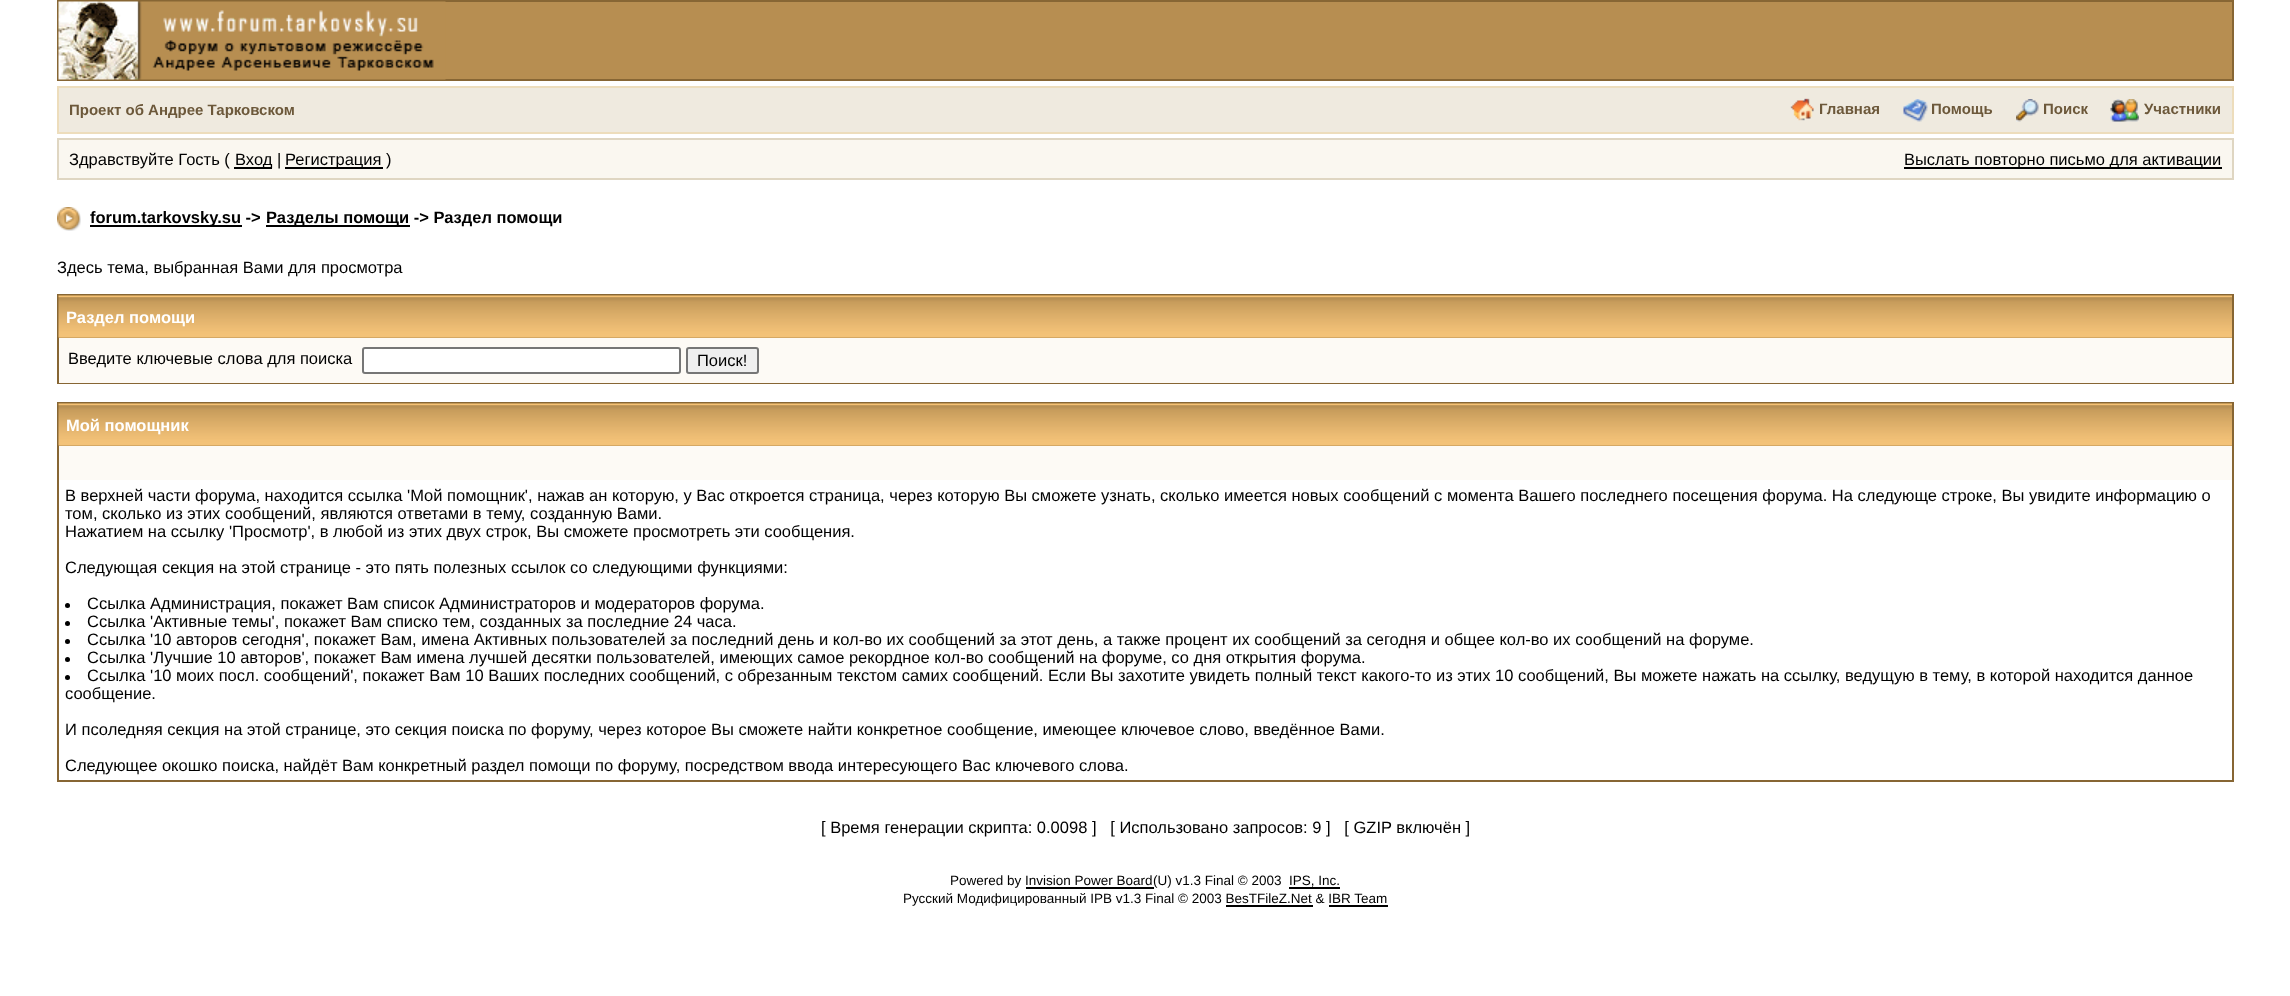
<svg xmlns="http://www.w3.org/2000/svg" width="2290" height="996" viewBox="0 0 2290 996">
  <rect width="100%" height="100%" fill="rgb(255,255,255)"/>
  <rect x="445" y="2" width="1787" height="77" fill="rgb(183,142,81)"/>
  <rect x="58" y="1" width="2175" height="79" fill="none" stroke="rgb(135,102,52)" stroke-width="2"/>
  <image x="58" y="1" width="388" height="79" href="pic1.png"/>
  <rect x="58" y="87" width="2175" height="46" fill="rgb(239,234,223)" stroke="rgb(237,221,188)" stroke-width="2"/>
  <text x="69" y="115" font-family="Liberation Sans" font-size="15" font-weight="bold" fill="rgb(108,88,58)">Проект об Андрее Тарковском</text>
  <image x="1790" y="98" width="24" height="23" href="pic2.png"/>
  <text x="1819" y="114" font-family="Liberation Sans" font-size="15" font-weight="bold" fill="rgb(108,88,58)">Главная</text>
  <image x="1903" y="99" width="25" height="23" href="pic3.png"/>
  <text x="1931" y="114" font-family="Liberation Sans" font-size="15" font-weight="bold" fill="rgb(108,88,58)">Помощь</text>
  <image x="2016" y="99" width="23" height="23" href="pic4.png"/>
  <text x="2043" y="114" font-family="Liberation Sans" font-size="15" font-weight="bold" fill="rgb(108,88,58)">Поиск</text>
  <image x="2110" y="99" width="29" height="23" href="pic5.png"/>
  <text x="2144" y="114" font-family="Liberation Sans" font-size="15" font-weight="bold" fill="rgb(108,88,58)">Участники</text>
  <rect x="58" y="139" width="2175" height="40" fill="rgb(250,247,240)" stroke="rgb(223,214,194)" stroke-width="2"/>
  <text x="69" y="165" font-family="Liberation Sans" font-size="16.5" fill="rgb(0,0,0)">Здравствуйте Гость (</text>
  <rect x="234" y="167" width="38" height="2" fill="rgb(0,0,0)"/>
  <text x="235" y="165" font-family="Liberation Sans" font-size="16.5" fill="rgb(0,0,0)">Вход |</text>
  <rect x="285" y="167" width="98" height="2" fill="rgb(0,0,0)"/>
  <text x="285" y="165" font-family="Liberation Sans" font-size="16.5" fill="rgb(0,0,0)">Регистрация )</text>
  <rect x="1904" y="167" width="318" height="2" fill="rgb(0,0,0)"/>
  <text x="1904" y="165" font-family="Liberation Sans" font-size="16.5" fill="rgb(0,0,0)">Выслать повторно письмо для активации</text>
  <image x="57" y="207" width="24" height="24" href="pic6.png"/>
  <rect x="90" y="225" width="152" height="2" fill="rgb(0,0,0)"/>
  <text x="90" y="223" font-family="Liberation Sans" font-size="16.5" font-weight="bold" fill="rgb(0,0,0)">forum.tarkovsky.su -&gt;</text>
  <rect x="266" y="225" width="144" height="2" fill="rgb(0,0,0)"/>
  <text x="266" y="223" font-family="Liberation Sans" font-size="16.5" font-weight="bold" fill="rgb(0,0,0)">Разделы помощи -&gt; Раздел помощи</text>
  <text x="57" y="273" font-family="Liberation Sans" font-size="16.5" fill="rgb(0,0,0)">Здесь тема, выбранная Вами для просмотра</text>
  <rect x="58" y="295" width="2175" height="88" fill="none" stroke="rgb(135,102,52)" stroke-width="2"/>
  <rect x="59" y="337" width="2173" height="1" fill="rgb(183,142,81)"/>
  <image x="58" y="295" width="2174" height="43" href="pic7.png"/>
  <text x="66" y="323" font-family="Liberation Sans" font-size="16.5" font-weight="bold" fill="rgb(255,255,255)">Раздел помощи</text>
  <rect x="59" y="338" width="2173" height="45" fill="rgb(253,250,245)"/>
  <text x="68" y="364" font-family="Liberation Sans" font-size="16.5" fill="rgb(0,0,0)">Введите ключевые слова для поиска</text>
  <rect x="363" y="348" width="317" height="25" rx="2" fill="rgb(255,255,255)" stroke="rgb(118,118,118)" stroke-width="2"/>
  <rect x="687" y="348" width="71" height="25" rx="2" fill="rgb(239,239,239)" stroke="rgb(118,118,118)" stroke-width="2"/>
  <text x="697" y="366" font-family="Liberation Sans" font-size="16.5" fill="rgb(0,0,0)">Поиск!</text>
  <rect x="58" y="403" width="2175" height="378" fill="none" stroke="rgb(135,102,52)" stroke-width="2"/>
  <rect x="59" y="445" width="2173" height="1" fill="rgb(183,142,81)"/>
  <image x="58" y="403" width="2174" height="43" href="pic7.png"/>
  <text x="66" y="431" font-family="Liberation Sans" font-size="16.5" font-weight="bold" fill="rgb(255,255,255)">Мой помощник</text>
  <rect x="59" y="446" width="2173" height="34" fill="rgb(253,250,245)"/>
  <g font-family="Liberation Sans" font-size="16.5" fill="rgb(0,0,0)">
    <text>
      <tspan x="65" y="501">В верхней части форума, находится ссылка 'Мой помощник', нажав ан которую, у Вас откроется страница, через которую Вы сможете узнать, сколько имеется новых сообщений с момента Вашего последнего посещения форума. На следующе строке, Вы увидите информацию о</tspan>
      <tspan x="65" y="519">том, сколько из этих сообщений, являются ответами в тему, созданную Вами.</tspan>
      <tspan x="65" y="537">Нажатием на ссылку 'Просмотр', в любой из этих двух строк, Вы сможете просмотреть эти сообщения.</tspan>
    </text>
    <text x="65" y="573">Следующая секция на этой странице - это пять полезных ссылок со следующими функциями:</text>
  </g>
  <circle cx="67.5" cy="605.5" r="2.5" fill="rgb(0,0,0)"/>
  <text x="87" y="609" font-family="Liberation Sans" font-size="16.5" fill="rgb(0,0,0)">Ссылка Администрация, покажет Вам список Администраторов и модераторов форума.</text>
  <circle cx="67.5" cy="623.5" r="2.5" fill="rgb(0,0,0)"/>
  <text x="87" y="627" font-family="Liberation Sans" font-size="16.5" fill="rgb(0,0,0)">Ссылка 'Активные темы', покажет Вам списко тем, созданных за последние 24 часа.</text>
  <circle cx="67.5" cy="641.5" r="2.5" fill="rgb(0,0,0)"/>
  <text x="87" y="645" font-family="Liberation Sans" font-size="16.5" fill="rgb(0,0,0)">Ссылка '10 авторов сегодня', покажет Вам, имена Активных пользователей за последний день и кол-во их сообщений за этот день, а также процент их сообщений за сегодня и общее кол-во их сообщений на форуме.</text>
  <circle cx="67.5" cy="659.5" r="2.5" fill="rgb(0,0,0)"/>
  <text x="87" y="663" font-family="Liberation Sans" font-size="16.5" fill="rgb(0,0,0)">Ссылка 'Лучшие 10 авторов', покажет Вам имена лучшей десятки пользователей, имеющих самое рекордное кол-во сообщений на форуме, со дня открытия форума.</text>
  <circle cx="67.5" cy="677.5" r="2.5" fill="rgb(0,0,0)"/>
  <g font-family="Liberation Sans" font-size="16.5" fill="rgb(0,0,0)">
    <text x="87" y="681">Ссылка '10 моих посл. сообщений', покажет Вам 10 Ваших последних сообщений, с обрезанным текстом самих сообщений. Если Вы захотите увидеть полный текст какого-то из этих 10 сообщений, Вы можете нажать на ссылку, ведущую в тему, в которой находится данное</text>
    <text x="65" y="699">сообщение.</text>
    <text x="65" y="735">И псоледняя секция на этой странице, это секция поиска по форуму, через которое Вы сможете найти конкретное сообщение, имеющее ключевое слово, введённое Вами.</text>
    <text x="65" y="771">Следующее окошко поиска, найдёт Вам конкретный раздел помощи по форуму, посредством ввода интересующего Вас ключевого слова.</text>
    <text x="821" y="833" xml:space="preserve">[ Время генерации скрипта: 0.0098 ]   [ Использовано запросов: 9 ]   [ GZIP включён ]</text>
  </g>
  <text x="950" y="885" font-family="Liberation Sans" font-size="13.5" fill="rgb(0,0,0)">Powered by Invision Power Board</text>
  <rect x="1026" y="887" width="128" height="2" fill="rgb(0,0,0)"/>
  <g font-family="Liberation Sans" font-size="13.5" fill="rgb(0,0,0)">
    <text x="1153" y="885">(U) v1.3 Final © 2003</text>
    <text x="1289" y="885">IPS, Inc.</text>
  </g>
  <rect x="1289" y="887" width="51" height="2" fill="rgb(0,0,0)"/>
  <text x="903" y="903" font-family="Liberation Sans" font-size="13.5" fill="rgb(0,0,0)">Русский Модифицированный IPB v1.3 Final © 2003 BesTFileZ.Net &amp; IBR Team</text>
  <rect x="1226" y="905" width="87" height="2" fill="rgb(0,0,0)"/>
  <rect x="1329" y="905" width="59" height="2" fill="rgb(0,0,0)"/>
</svg>
